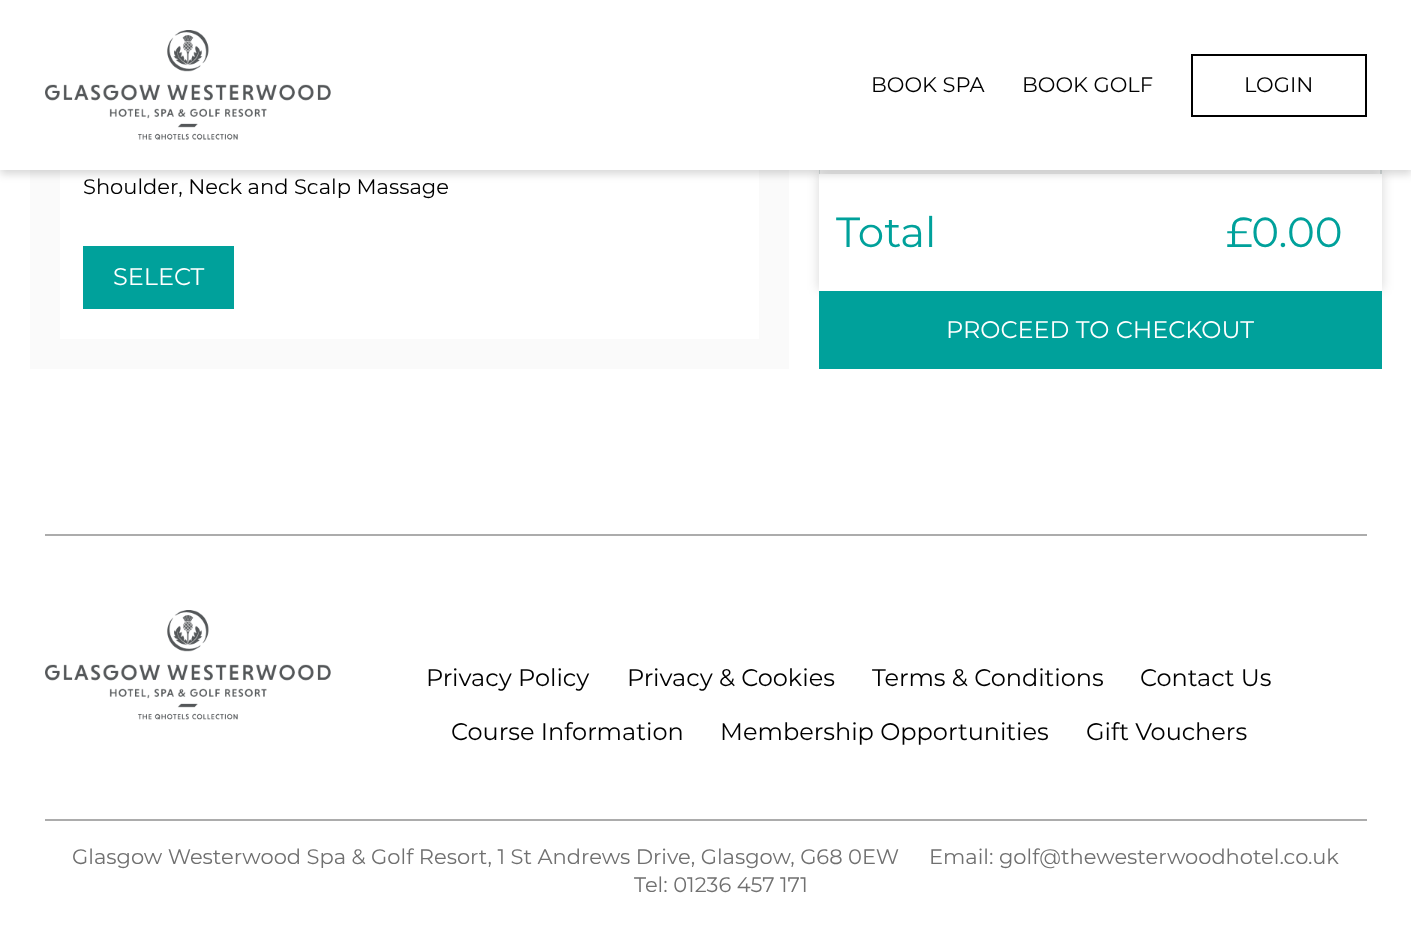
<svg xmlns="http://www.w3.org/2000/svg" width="1411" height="928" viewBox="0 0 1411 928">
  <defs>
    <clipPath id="clip1"><path d="M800 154H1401V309H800ZM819 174H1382V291H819Z" clip-rule="evenodd"/></clipPath>
  </defs>
  <rect width="100%" height="100%" fill="rgb(255,255,255)"/>
  <rect x="30" y="170" width="759" height="199" fill="rgb(250,250,250)"/>
  <rect x="60" y="170" width="699" height="169" fill="rgb(255,255,255)"/>
  <path d="M826-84H1374C1378-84 1382-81 1382-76V174H819V-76C819-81 822-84 826-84ZM826-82H1374C1377-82 1380-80 1380-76V174H820V-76C820-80 823-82 826-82Z" fill="rgb(220,227,227)" fill-rule="evenodd"/>
  <rect x="0" y="5" width="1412" height="169" fill="rgba(0,0,0,0.16)" filter="blur(4.5px)"/>
  <g clip-path="url(#clip1)">
    <rect x="819" y="173" width="563" height="117" fill="rgba(0,0,0,0.16)" filter="blur(6px)"/>
  </g>
  <rect x="0" y="0" width="1411" height="170" fill="rgb(255,255,255)"/>
  <image x="45" y="30" width="286" height="110" href="pic1.png"/>
  <g font-family="Montserrat" font-size="21" font-weight="100" fill="rgb(0,0,0)">
    <text x="871" y="92">BOOK SPA</text>
    <text x="1022" y="92">BOOK GOLF</text>
  </g>
  <rect x="1192" y="55" width="174" height="61" fill="none" stroke="rgb(0,0,0)" stroke-width="2"/>
  <g font-family="Montserrat" font-size="21" font-weight="100" fill="rgb(0,0,0)">
    <text x="1244" y="92">LOGIN</text>
    <text x="83" y="194">Shoulder, Neck and Scalp Massage</text>
  </g>
  <rect x="83" y="246" width="151" height="63" fill="rgb(0,161,155)"/>
  <text x="113" y="285" font-family="Montserrat" font-size="24" font-weight="100" fill="rgb(255,255,255)">SELECT</text>
  <g font-family="Montserrat" font-size="42" font-weight="100" fill="rgb(0,161,155)">
    <text x="836" y="247">Total</text>
    <text x="1226" y="247">£0.00</text>
  </g>
  <rect x="819" y="291" width="563" height="78" fill="rgb(0,161,155)"/>
  <text x="946" y="338" font-family="Montserrat" font-size="24" font-weight="100" fill="rgb(255,255,255)">PROCEED TO CHECKOUT</text>
  <rect x="45" y="534" width="1322" height="2" fill="rgb(172,172,172)"/>
  <image x="45" y="610" width="286" height="110" href="pic2.png"/>
  <g font-family="Montserrat" font-size="24" font-weight="100" fill="rgb(0,0,0)">
    <text x="426" y="686">Privacy Policy</text>
    <text x="627" y="686">Privacy &amp; Cookies</text>
    <text x="872" y="686">Terms &amp; Conditions</text>
    <text x="1140" y="686">Contact Us</text>
    <text x="451" y="740">Course Information</text>
    <text x="720" y="740">Membership Opportunities</text>
    <text x="1086" y="740">Gift Vouchers</text>
  </g>
  <rect x="45" y="819" width="1322" height="2" fill="rgb(172,172,172)"/>
  <g font-family="Montserrat" font-size="21" font-weight="100" fill="rgb(112,112,112)">
    <text x="72" y="864">Glasgow Westerwood Spa &amp; Golf Resort, 1 St Andrews Drive, Glasgow, G68 0EW</text>
    <text x="929" y="864">Email: golf@thewesterwoodhotel.co.uk</text>
    <text x="634" y="892">Tel: 01236 457 171</text>
  </g>
</svg>
